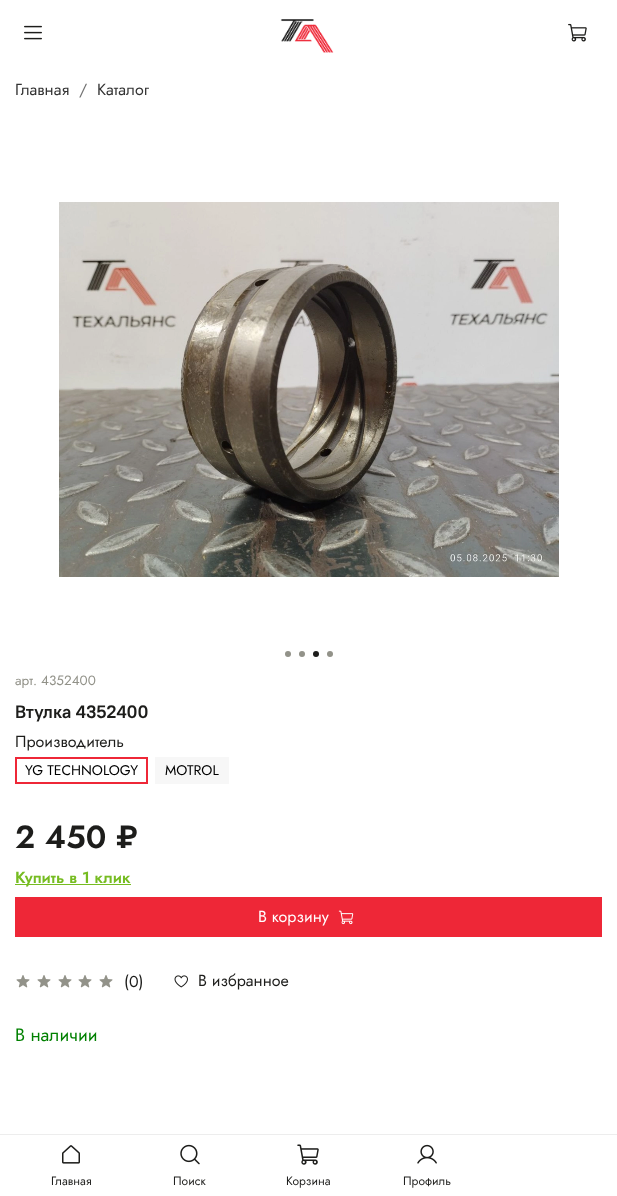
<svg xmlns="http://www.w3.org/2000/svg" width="617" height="1196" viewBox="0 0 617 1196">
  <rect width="100%" height="100%" fill="rgb(255,255,255)"/>
  <image x="24" y="25" width="18" height="15" href="pic1.png"/>
  <image x="280" y="19" width="54" height="34" href="pic2.png"/>
  <image x="568" y="23" width="19" height="19" href="pic3.png"/>
  <text x="15" y="95" font-family="Jost" font-size="16" fill="rgb(51,51,51)">Главная</text>
  <text x="79" y="95" font-family="Jost" font-size="16" fill="rgb(112,112,112)">/</text>
  <text x="97" y="95" font-family="Jost" font-size="16" fill="rgb(51,51,51)">Каталог</text>
  <image x="59" y="202" width="500" height="375" href="pic4.png"/>
  <circle cx="288" cy="654" r="3" fill="rgb(146,146,137)"/>
  <circle cx="302" cy="654" r="3" fill="rgb(146,146,137)"/>
  <circle cx="316" cy="654" r="3" fill="rgb(29,29,27)"/>
  <circle cx="330" cy="654" r="3" fill="rgb(146,146,137)"/>
  <text x="15" y="685" font-family="Jost" font-size="13.5" fill="rgb(146,146,137)">арт. 4352400</text>
  <text x="15" y="718" font-family="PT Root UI" font-size="18" font-weight="bold" fill="rgb(29,29,27)">Втулка 4352400</text>
  <text x="15" y="747" font-family="Jost" font-size="16" fill="rgb(29,29,27)">Производитель</text>
  <rect x="16" y="758" width="131" height="25" fill="none" stroke="rgb(238,39,55)" stroke-width="2"/>
  <text x="25" y="775" font-family="Jost" font-size="14" fill="rgb(0,0,0)">YG TECHNOLOGY</text>
  <rect x="155" y="757" width="74" height="27" fill="rgb(247,247,247)"/>
  <text x="165" y="775" font-family="Jost" font-size="14" fill="rgb(0,0,0)">MOTROL</text>
  <text x="15" y="848" font-family="Jost" font-size="32" font-weight="600" fill="rgb(29,29,27)">2 450 ₽</text>
  <rect x="15" y="884" width="116" height="1" fill="rgb(118,188,33)"/>
  <text x="15" y="883" font-family="Jost" font-size="16" font-weight="600" fill="rgb(118,188,33)">Купить в 1 клик</text>
  <rect x="15" y="897" width="587" height="40" fill="rgb(238,39,55)"/>
  <text x="258" y="922" font-family="Jost" font-size="16" fill="rgb(255,255,255)">В корзину</text>
  <image x="338" y="910" width="16" height="15" href="pic5.png"/>
  <image x="16" y="975" width="14" height="13" href="pic6.png"/>
  <image x="37" y="975" width="14" height="13" href="pic6.png"/>
  <image x="58" y="975" width="14" height="13" href="pic6.png"/>
  <image x="78" y="975" width="14" height="13" href="pic6.png"/>
  <image x="99" y="975" width="14" height="13" href="pic6.png"/>
  <text x="124" y="987" font-family="Jost" font-size="16" fill="rgb(29,29,27)">(0)</text>
  <image x="174" y="975" width="14" height="13" href="pic7.png"/>
  <text x="198" y="986" font-family="Jost" font-size="16" fill="rgb(29,29,27)">В избранное</text>
  <text x="15" y="1041" font-family="Jost" font-size="18" fill="rgb(0,128,0)">В наличии</text>
  <rect x="0" y="1134" width="617" height="1" fill="rgb(237,237,237)"/>
  <image x="62" y="1145" width="18" height="19" href="pic8.png"/>
  <text x="51" y="1185" font-family="Jost" font-size="12" fill="rgb(29,29,27)">Главная</text>
  <image x="180" y="1144" width="20" height="21" href="pic9.png"/>
  <text x="173" y="1185" font-family="Jost" font-size="12" fill="rgb(29,29,27)">Поиск</text>
  <image x="297" y="1144" width="22" height="21" href="pic10.png"/>
  <text x="286" y="1185" font-family="Jost" font-size="12" fill="rgb(29,29,27)">Корзина</text>
  <image x="417" y="1144" width="20" height="20" href="pic11.png"/>
  <text x="403" y="1185" font-family="Jost" font-size="12" fill="rgb(29,29,27)">Профиль</text>
</svg>
